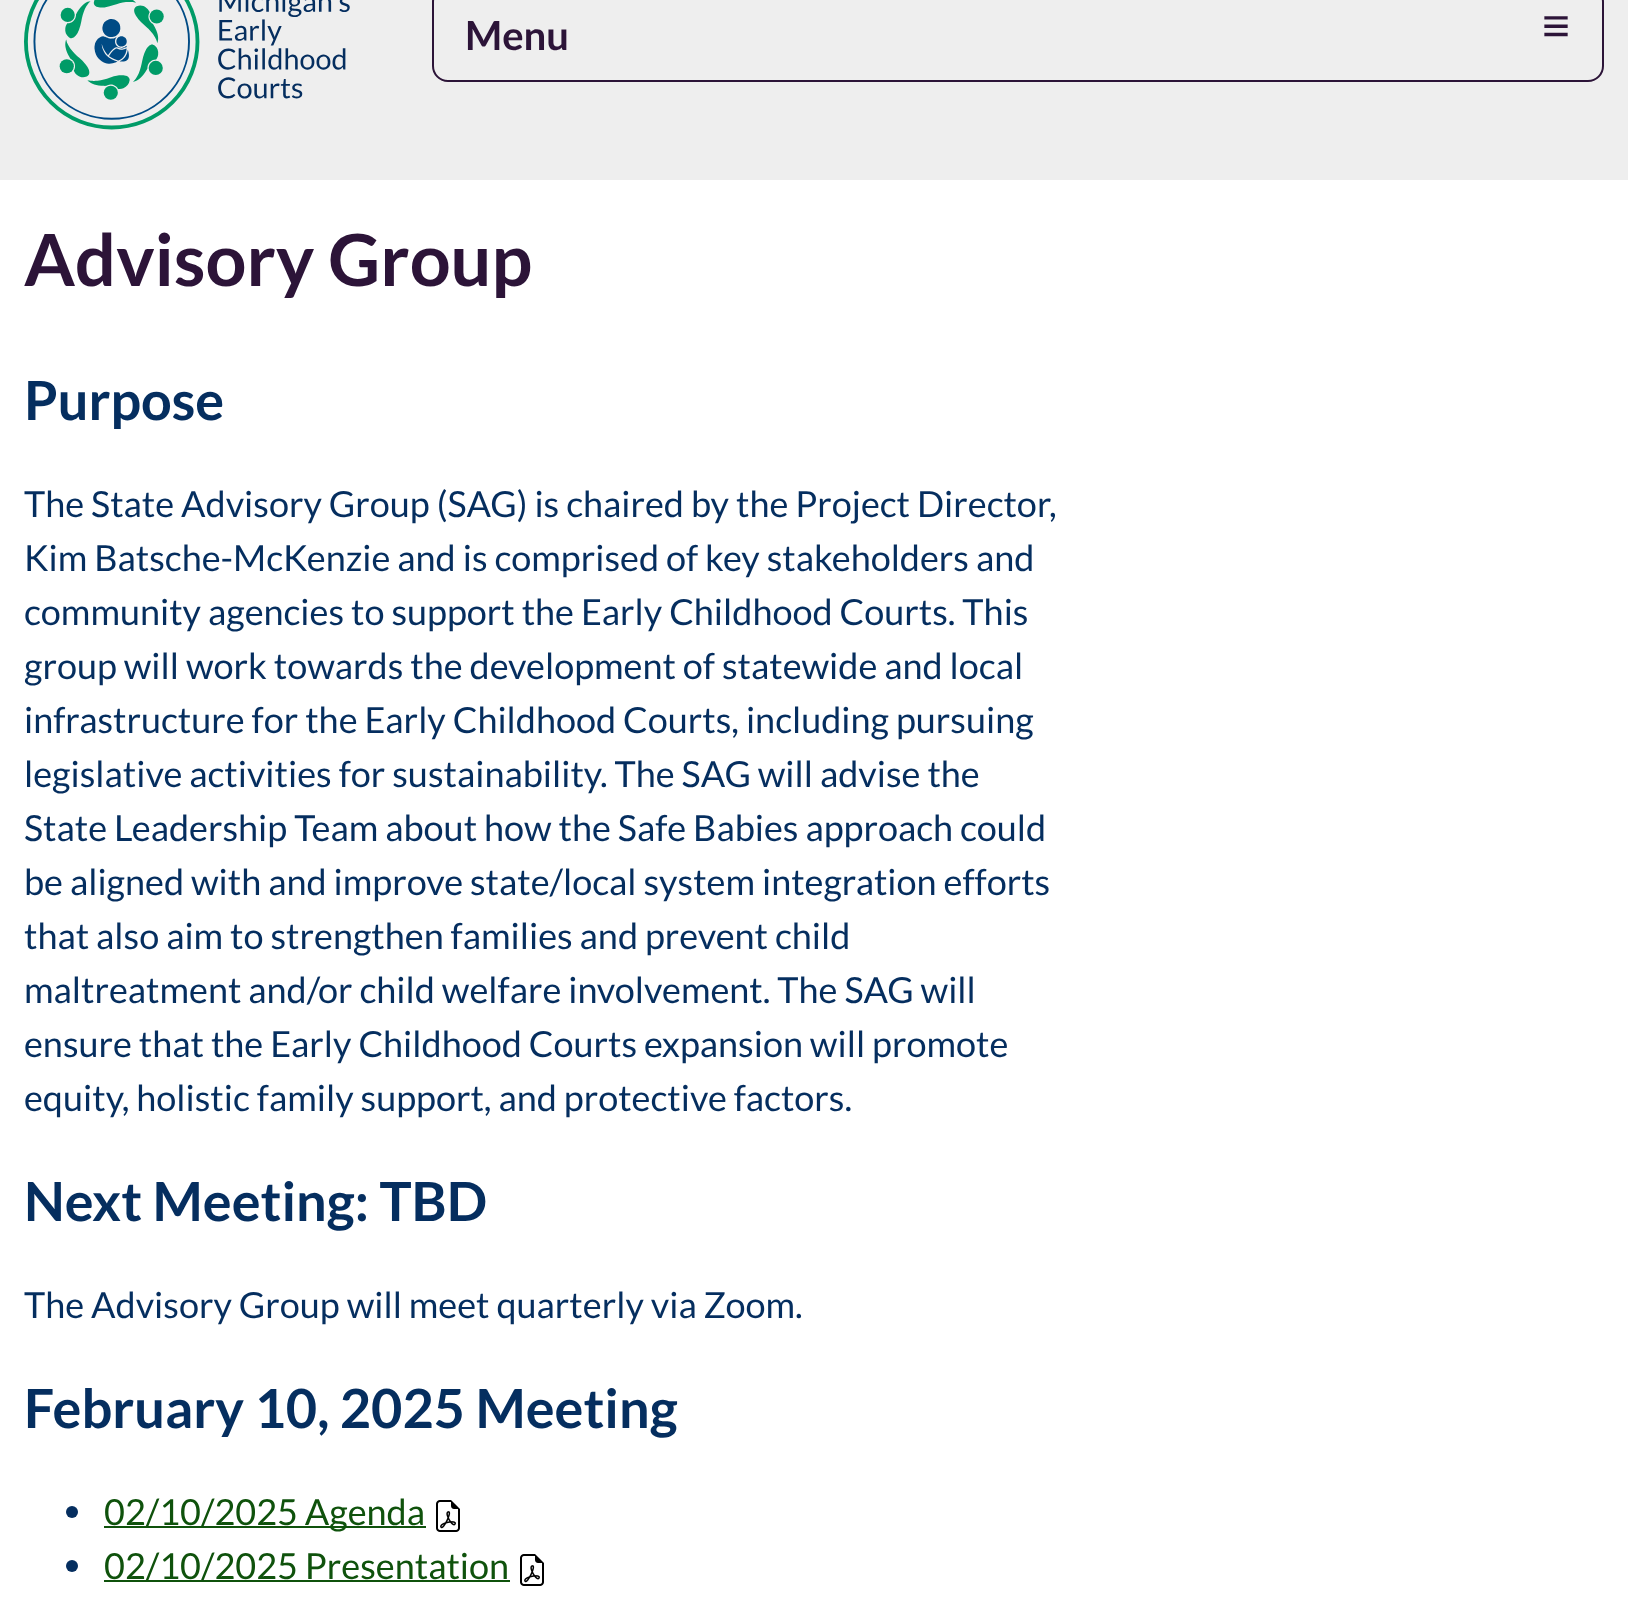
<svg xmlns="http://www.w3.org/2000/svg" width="1628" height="1608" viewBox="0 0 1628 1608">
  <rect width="100%" height="100%" fill="rgb(255,255,255)"/>
  <rect x="0" y="0" width="1628" height="180" fill="rgb(238,238,238)"/>
  <image x="24" y="0" width="326" height="130" href="pic1.png"/>
  <rect x="433" y="-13" width="1170" height="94" rx="15" fill="none" stroke="rgb(44,20,56)" stroke-width="2"/>
  <text x="465" y="50" font-family="Lato" font-size="40" font-weight="bold" fill="rgb(44,20,56)">Menu</text>
  <text x="1542" y="42" font-family="Liberation Sans" font-size="48" font-weight="bold" fill="rgb(44,20,56)">≡</text>
  <text x="24" y="286" font-family="Lato" font-size="72" font-weight="bold" fill="rgb(44,20,56)">Advisory Group</text>
  <text x="24" y="420" font-family="Lato" font-size="54" font-weight="bold" fill="rgb(5,46,95)">Purpose</text>
  <g font-family="Lato" font-size="36" fill="rgb(5,46,95)">
    <text>
      <tspan x="24" y="517">The State Advisory Group (SAG) is chaired by the Project Director,</tspan>
      <tspan x="24" y="571">Kim Batsche-McKenzie and is comprised of key stakeholders and</tspan>
      <tspan x="24" y="625">community agencies to support the Early Childhood Courts. This</tspan>
      <tspan x="24" y="679">group will work towards the development of statewide and local</tspan>
      <tspan x="24" y="733">infrastructure for the Early Childhood Courts, including pursuing</tspan>
      <tspan x="24" y="787">legislative activities for sustainability. The SAG will advise the</tspan>
      <tspan x="24" y="841">State Leadership Team about how the Safe Babies approach could</tspan>
      <tspan x="24" y="895">be aligned with and improve state/local system integration efforts</tspan>
      <tspan x="24" y="949">that also aim to strengthen families and prevent child</tspan>
      <tspan x="24" y="1003">maltreatment and/or child welfare involvement. The SAG will</tspan>
      <tspan x="24" y="1057">ensure that the Early Childhood Courts expansion will promote</tspan>
      <tspan x="24" y="1111">equity, holistic family support, and protective factors.</tspan>
    </text>
  </g>
  <text x="24" y="1221" font-family="Lato" font-size="54" font-weight="bold" fill="rgb(5,46,95)">Next Meeting: TBD</text>
  <text x="24" y="1318" font-family="Lato" font-size="36" fill="rgb(5,46,95)">The Advisory Group will meet quarterly via Zoom.</text>
  <text x="24" y="1428" font-family="Lato" font-size="54" font-weight="bold" fill="rgb(5,46,95)">February 10, 2025 Meeting</text>
  <circle cx="72" cy="1512" r="6" fill="rgb(5,46,95)"/>
  <rect x="104" y="1526" width="322" height="2" fill="rgb(15,82,12)"/>
  <text x="104" y="1525" font-family="Lato" font-size="36" fill="rgb(15,82,12)">02/10/2025 Agenda</text>
  <image x="436" y="1500" width="24" height="32" href="pic2.png"/>
  <circle cx="72" cy="1566" r="6" fill="rgb(5,46,95)"/>
  <rect x="104" y="1580" width="406" height="2" fill="rgb(15,82,12)"/>
  <text x="104" y="1579" font-family="Lato" font-size="36" fill="rgb(15,82,12)">02/10/2025 Presentation</text>
  <image x="520" y="1554" width="24" height="32" href="pic2.png"/>
</svg>
